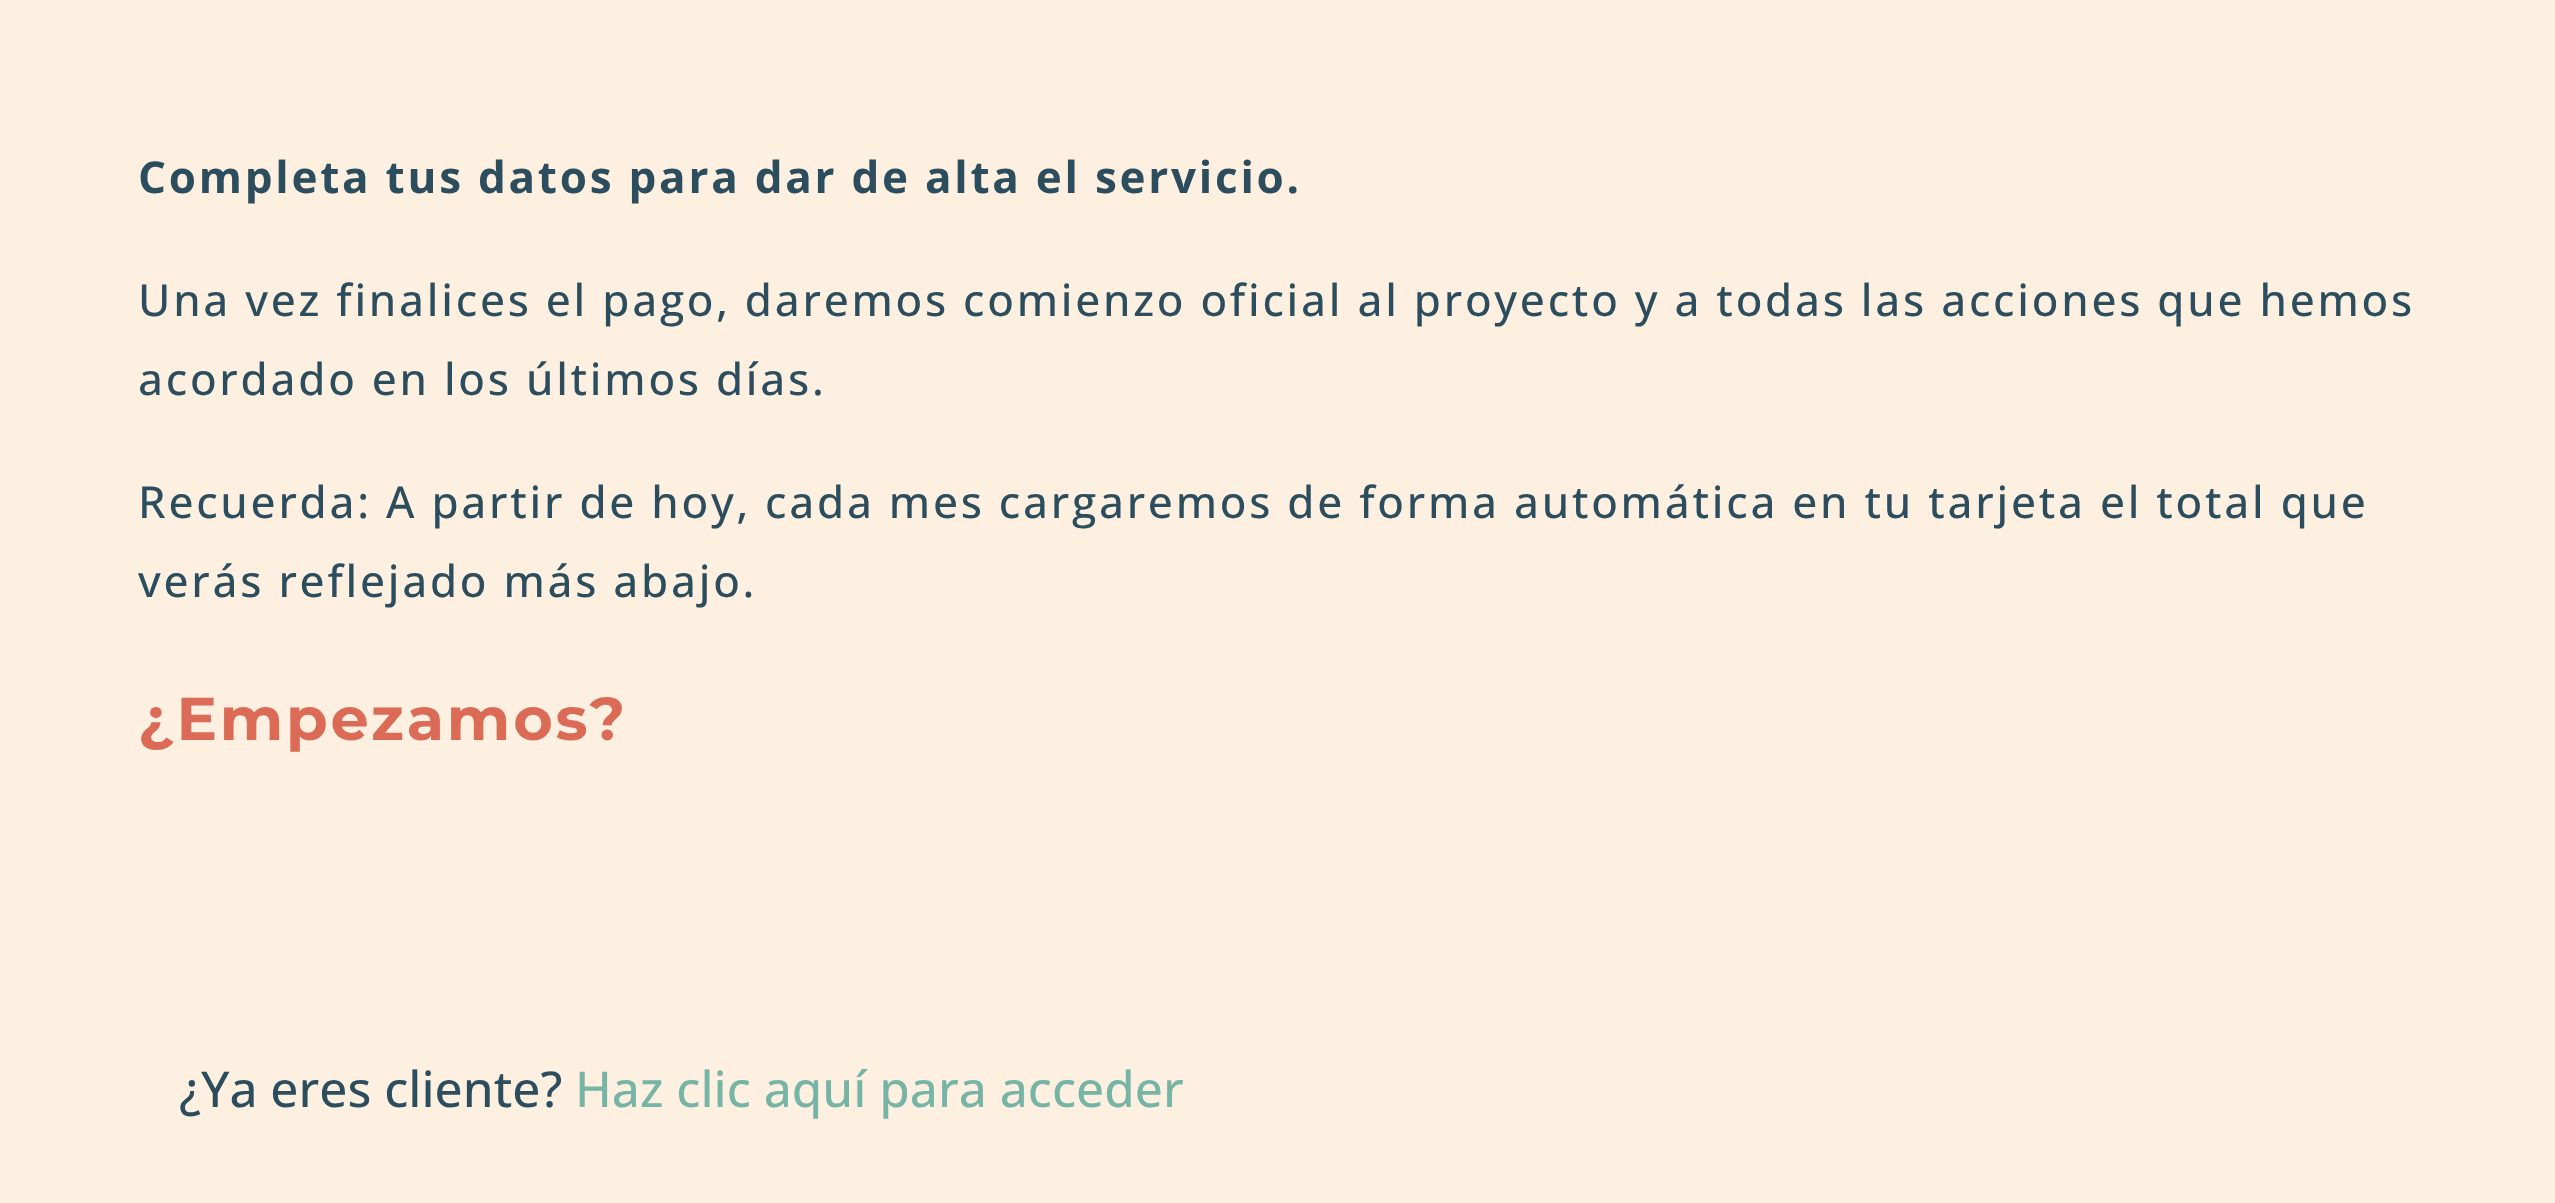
<svg xmlns="http://www.w3.org/2000/svg" width="2555" height="1203" viewBox="0 0 2555 1203">
  <rect width="100%" height="100%" fill="rgb(253,240,224)"/>
  <text x="138" y="193" font-family="Open Sans" font-size="44" font-weight="bold" letter-spacing="2.75" fill="rgb(44,77,93)">Completa tus datos para dar de alta el servicio.</text>
  <g font-family="Open Sans" font-size="44" font-weight="500" letter-spacing="2.75" fill="rgb(44,77,93)">
    <text>
      <tspan x="138" y="316">Una vez finalices el pago, daremos comienzo oficial al proyecto y a todas las acciones que hemos</tspan>
      <tspan x="138" y="395">acordado en los últimos días.</tspan>
    </text>
    <text>
      <tspan x="138" y="518">Recuerda: A partir de hoy, cada mes cargaremos de forma automática en tu tarjeta el total que</tspan>
      <tspan x="138" y="597">verás reflejado más abajo.</tspan>
    </text>
  </g>
  <text x="138" y="740" font-family="Montserrat" font-size="60.5" font-weight="100" letter-spacing="2.75" fill="rgb(219,107,86)">¿Empezamos?</text>
  <text x="179" y="1107" font-family="Open Sans" font-size="49.5" font-weight="500" fill="rgb(44,77,93)">¿Ya eres cliente?</text>
  <text x="575" y="1107" font-family="Open Sans" font-size="49.5" font-weight="500" fill="rgb(118,180,166)">Haz clic aquí para acceder</text>
</svg>
